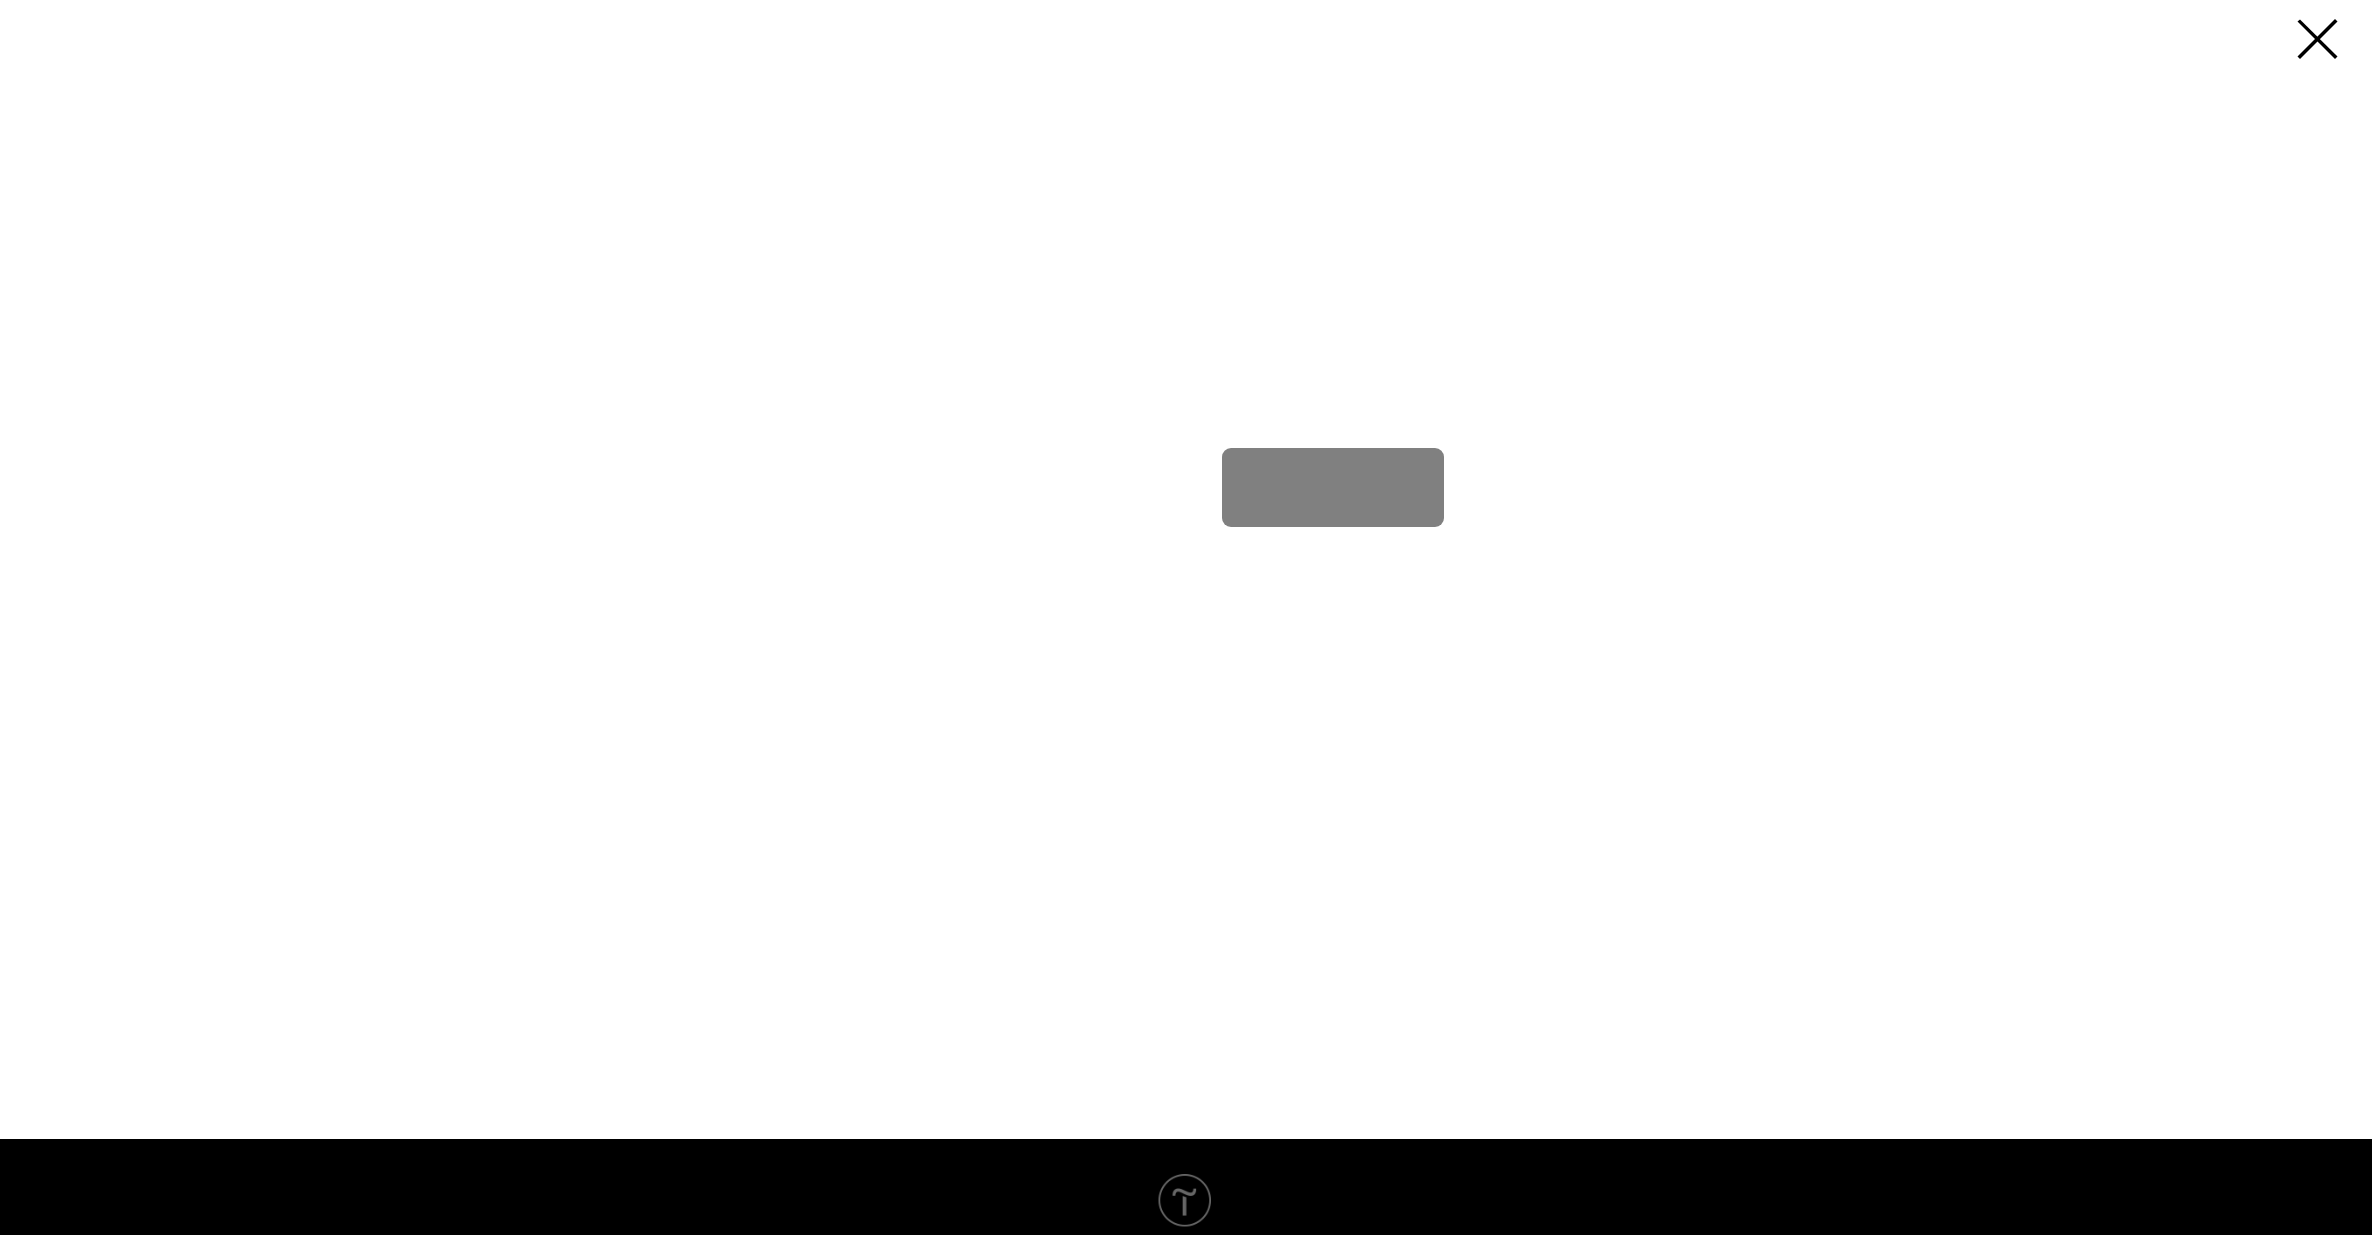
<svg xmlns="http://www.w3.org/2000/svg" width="2372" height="1235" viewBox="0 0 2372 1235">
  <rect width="100%" height="100%" fill="rgb(255,255,255)"/>
  <path d="M2297.5 21.5L2300 19.5L2337.5 56.5L2335 59Z" fill="rgb(0,0,0)" fill-rule="evenodd"/>
  <path d="M2335 19L2337.5 21.5L2300 59L2297.5 56.5Z" fill="rgb(0,0,0)" fill-rule="evenodd"/>
  <rect x="1222" y="448" width="222" height="79" rx="9" fill="rgb(128,128,128)"/>
  <rect x="0" y="1139" width="2372" height="96" fill="rgb(0,0,0)"/>
  <image x="1158" y="1174" width="53" height="53" href="pic1.png"/>
</svg>
